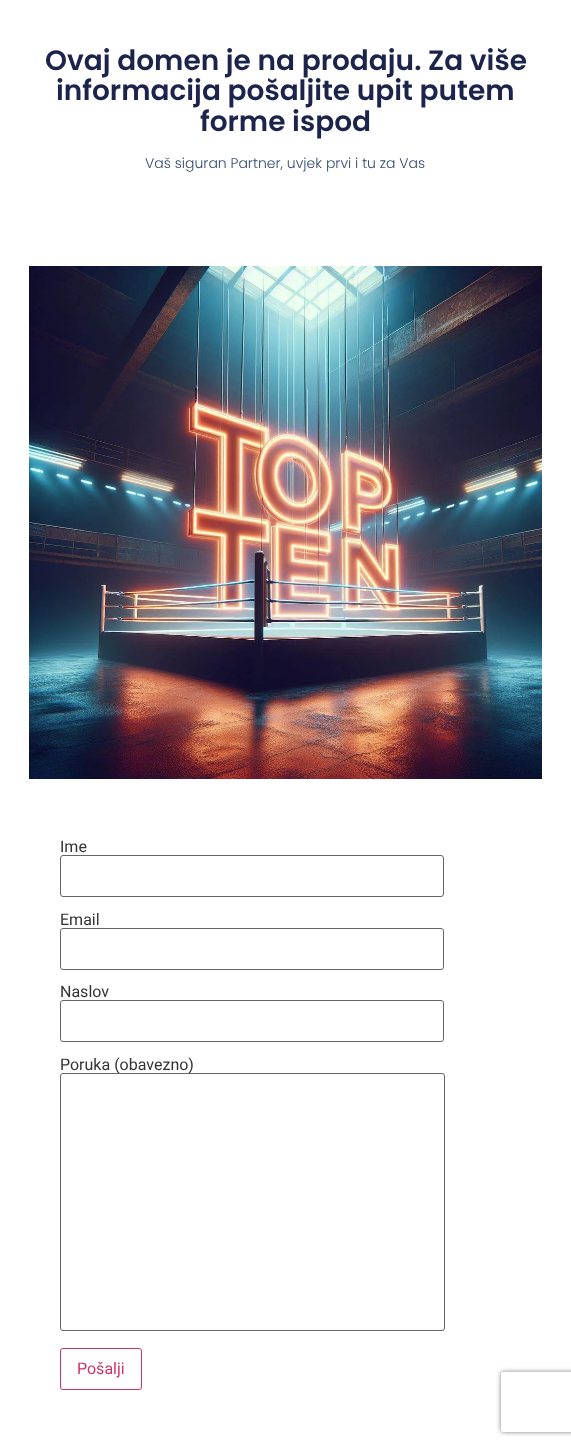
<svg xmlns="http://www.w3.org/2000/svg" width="571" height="1446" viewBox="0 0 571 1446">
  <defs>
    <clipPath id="clip1"><path d="M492 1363H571V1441H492ZM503 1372H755C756 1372 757 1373 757 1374V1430C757 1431 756 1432 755 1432H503C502 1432 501 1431 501 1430V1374C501 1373 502 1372 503 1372Z" clip-rule="evenodd"/></clipPath>
  </defs>
  <rect width="100%" height="100%" fill="rgb(255,255,255)"/>
  <g font-family="Poppins" font-size="28" font-weight="600" fill="rgb(28,36,75)">
    <text x="45" y="70">Ovaj domen je na prodaju. Za više</text>
    <text x="56" y="100">informacija pošaljite upit putem</text>
    <text x="200" y="131">forme ispod</text>
  </g>
  <text x="145" y="168" font-family="Poppins" font-size="14" font-weight="300" fill="rgb(50,74,109)">Vaš siguran Partner, uvjek prvi i tu za Vas</text>
  <image x="29" y="266" width="513" height="513" href="pic1.png"/>
  <text x="60" y="852" font-family="Roboto" font-size="16" fill="rgb(51,51,51)">Ime</text>
  <rect x="60.5" y="855.5" width="383" height="41" rx="2.5" fill="none" stroke="rgb(102,102,102)"/>
  <text x="60" y="925" font-family="Roboto" font-size="16" fill="rgb(51,51,51)">Email</text>
  <rect x="60.5" y="928.5" width="383" height="41" rx="2.5" fill="none" stroke="rgb(102,102,102)"/>
  <text x="60" y="997" font-family="Roboto" font-size="16" fill="rgb(51,51,51)">Naslov</text>
  <rect x="60.5" y="1000.5" width="383" height="41" rx="2.5" fill="none" stroke="rgb(102,102,102)"/>
  <text x="60" y="1070" font-family="Roboto" font-size="16" fill="rgb(51,51,51)">Poruka (obavezno)</text>
  <rect x="60.5" y="1073.5" width="384" height="257" rx="2.5" fill="rgb(255,255,255)" stroke="rgb(102,102,102)"/>
  <rect x="60.5" y="1348.5" width="81" height="41" rx="2.5" fill="none" stroke="rgb(204,51,102)"/>
  <text x="77" y="1374" font-family="Roboto" font-size="16" fill="rgb(204,51,102)">Pošalji</text>
  <g clip-path="url(#clip1)">
    <rect x="501" y="1372" width="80" height="60" rx="2" fill="rgb(128,128,128)" filter="blur(2.5px)"/>
  </g>
</svg>
